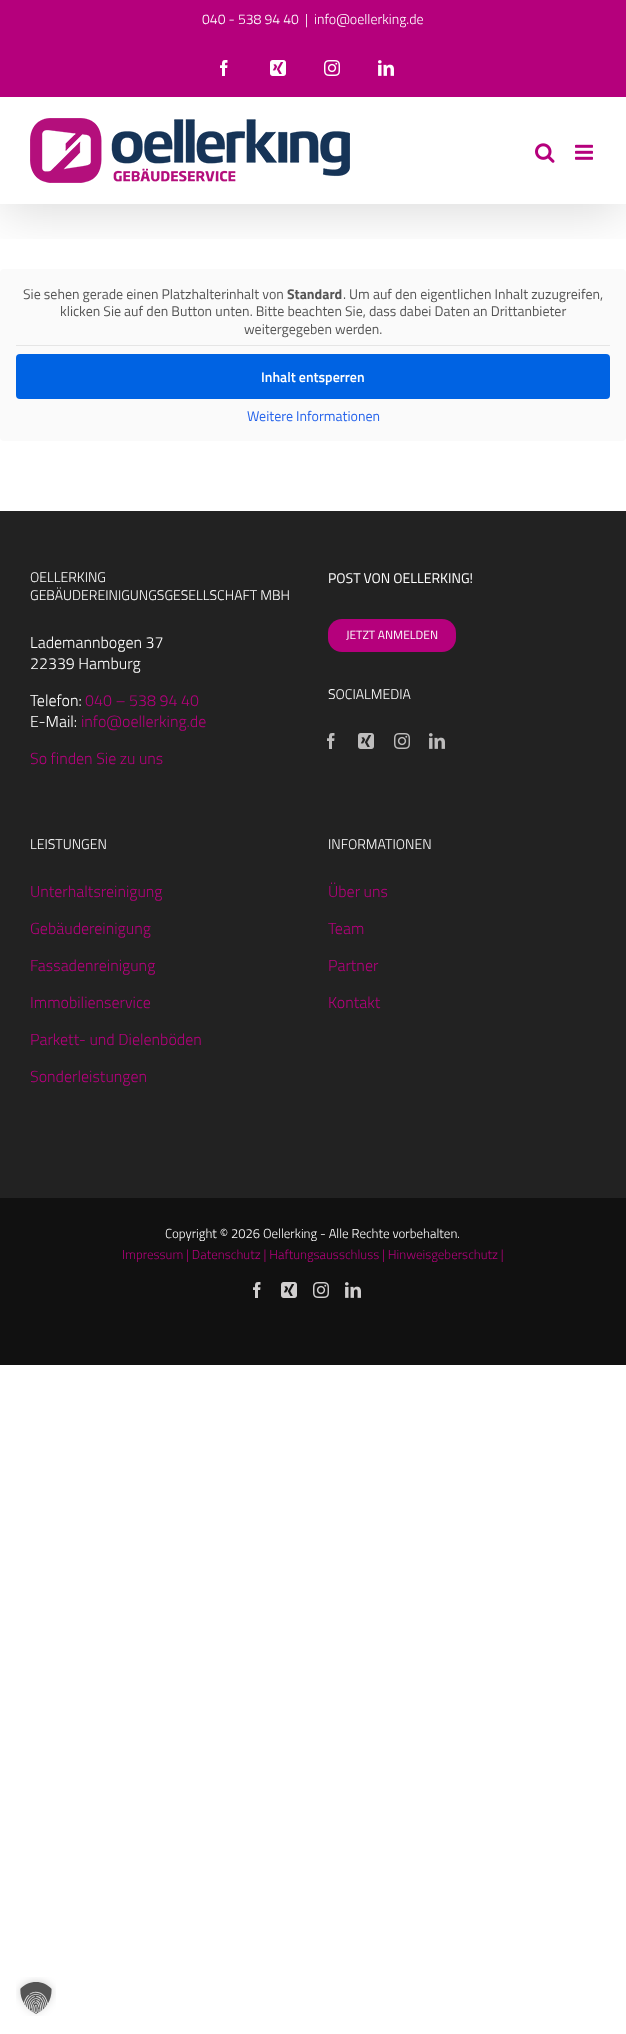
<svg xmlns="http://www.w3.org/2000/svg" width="626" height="2034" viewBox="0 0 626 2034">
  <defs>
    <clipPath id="clip1"><rect x="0" y="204" width="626" height="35"/></clipPath>
  </defs>
  <rect width="100%" height="100%" fill="rgb(255,255,255)"/>
  <rect x="0" y="269" width="626" height="172" rx="4" fill="rgb(250,250,250)"/>
  <g clip-path="url(#clip1)">
    <rect x="2" y="12" width="622" height="200" fill="rgba(0,0,0,0.14)" filter="blur(25px)"/>
  </g>
  <rect x="0" y="0" width="626" height="97" fill="rgb(181,0,124)"/>
  <g font-family="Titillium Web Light" font-size="14" font-weight="300" fill="rgb(255,255,255)">
    <text x="202" y="24">040 - 538 94 40</text>
    <text x="305" y="24">|</text>
    <text x="314" y="24">info@oellerking.de</text>
  </g>
  <image x="220" y="60" width="8" height="16" href="pic1.png"/>
  <image x="270" y="60" width="16" height="16" href="pic2.png"/>
  <image x="324" y="60" width="16" height="16" href="pic3.png"/>
  <image x="378" y="60" width="16" height="16" href="pic4.png"/>
  <image x="30" y="118" width="320" height="65" href="pic5.png"/>
  <image x="535" y="143" width="20" height="20" href="pic6.png"/>
  <image x="575" y="144" width="18" height="16" href="pic7.png"/>
  <rect x="16" y="345" width="594" height="1" fill="rgb(229,229,229)"/>
  <text x="23" y="299" font-family="Titillium Web" font-size="14" fill="rgb(85,85,85)">Sie sehen gerade einen Platzhalterinhalt von</text>
  <text x="287" y="299" font-family="Titillium Web" font-size="14" font-weight="bold" fill="rgb(85,85,85)">Standard</text>
  <g font-family="Titillium Web" font-size="14" fill="rgb(85,85,85)">
    <text x="343" y="299">. Um auf den eigentlichen Inhalt zuzugreifen,</text>
    <text x="60" y="316">klicken Sie auf den Button unten. Bitte beachten Sie, dass dabei Daten an Drittanbieter</text>
    <text x="244" y="334">weitergegeben werden.</text>
  </g>
  <rect x="16" y="354" width="594" height="45" rx="4" fill="rgb(0,99,227)"/>
  <text x="261" y="382" font-family="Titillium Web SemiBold" font-size="14" font-weight="600" fill="rgb(255,255,255)">Inhalt entsperren</text>
  <text x="247" y="421" font-family="Titillium Web" font-size="14" fill="rgb(37,99,235)">Weitere Informationen</text>
  <rect x="0" y="511" width="626" height="687" fill="rgb(34,34,34)"/>
  <g font-family="Titillium Web Light" font-size="14" font-weight="300" fill="rgb(255,255,255)">
    <text>
      <tspan x="30" y="582">OELLERKING</tspan>
      <tspan x="30" y="600">GEBÄUDEREINIGUNGSGESELLSCHAFT MBH</tspan>
    </text>
  </g>
  <g font-family="Titillium Web Light" font-size="16" font-weight="300" fill="rgb(255,255,255)">
    <text>
      <tspan x="30" y="648">Lademannbogen 37</tspan>
      <tspan x="30" y="669">22339 Hamburg</tspan>
    </text>
    <text x="30" y="706">Telefon:</text>
  </g>
  <text x="85" y="706" font-family="Titillium Web Light" font-size="16" font-weight="300" fill="rgb(181,0,124)">040 – 538 94 40</text>
  <text x="30" y="727" font-family="Titillium Web Light" font-size="16" font-weight="300" fill="rgb(255,255,255)">E-Mail:</text>
  <g font-family="Titillium Web Light" font-size="16" font-weight="300" fill="rgb(181,0,124)">
    <text x="81" y="727">info@oellerking.de</text>
    <text x="30" y="764">So finden Sie zu uns</text>
  </g>
  <text x="328" y="583" font-family="Titillium Web" font-size="14" fill="rgb(255,255,255)">POST VON OELLERKING!</text>
  <rect x="328" y="619" width="128" height="33" rx="14" fill="rgb(181,0,124)"/>
  <text x="346" y="639" font-family="Titillium Web" font-size="12" fill="rgb(255,255,255)">JETZT ANMELDEN</text>
  <text x="328" y="699" font-family="Titillium Web Light" font-size="14" font-weight="300" fill="rgb(255,255,255)">SOCIALMEDIA</text>
  <image x="327" y="733" width="8" height="16" href="pic8.png"/>
  <image x="358" y="733" width="16" height="16" href="pic9.png"/>
  <image x="394" y="733" width="16" height="16" href="pic10.png"/>
  <image x="429" y="733" width="16" height="16" href="pic11.png"/>
  <text x="30" y="849" font-family="Titillium Web Light" font-size="14" font-weight="300" fill="rgb(255,255,255)">LEISTUNGEN</text>
  <g font-family="Titillium Web Light" font-size="16" font-weight="300" fill="rgb(181,0,124)">
    <text x="30" y="897">Unterhaltsreinigung</text>
    <text x="30" y="934">Gebäudereinigung</text>
    <text x="30" y="971">Fassadenreinigung</text>
    <text x="30" y="1008">Immobilienservice</text>
    <text x="30" y="1045">Parkett- und Dielenböden</text>
    <text x="30" y="1082">Sonderleistungen</text>
  </g>
  <text x="328" y="849" font-family="Titillium Web Light" font-size="14" font-weight="300" fill="rgb(255,255,255)">INFORMATIONEN</text>
  <g font-family="Titillium Web Light" font-size="16" font-weight="300" fill="rgb(181,0,124)">
    <text x="328" y="897">Über uns</text>
    <text x="328" y="934">Team</text>
    <text x="328" y="971">Partner</text>
    <text x="328" y="1008">Kontakt</text>
  </g>
  <rect x="0" y="1198" width="626" height="167" fill="rgb(17,17,17)"/>
  <text x="165" y="1238" font-family="Titillium Web Light" font-size="13" font-weight="300" fill="rgb(255,255,255)">Copyright © 2026 Oellerking - Alle Rechte vorbehalten.</text>
  <text x="122" y="1259" font-family="Titillium Web Light" font-size="13" font-weight="300" fill="rgb(181,0,124)">Impressum | Datenschutz | Haftungsausschluss | Hinweisgeberschutz |</text>
  <image x="253" y="1282" width="8" height="16" href="pic12.png"/>
  <image x="281" y="1282" width="16" height="16" href="pic13.png"/>
  <image x="313" y="1282" width="16" height="16" href="pic14.png"/>
  <image x="345" y="1282" width="16" height="16" href="pic15.png"/>
  <image x="16" y="1977" width="40" height="39" href="pic16.png"/>
</svg>
